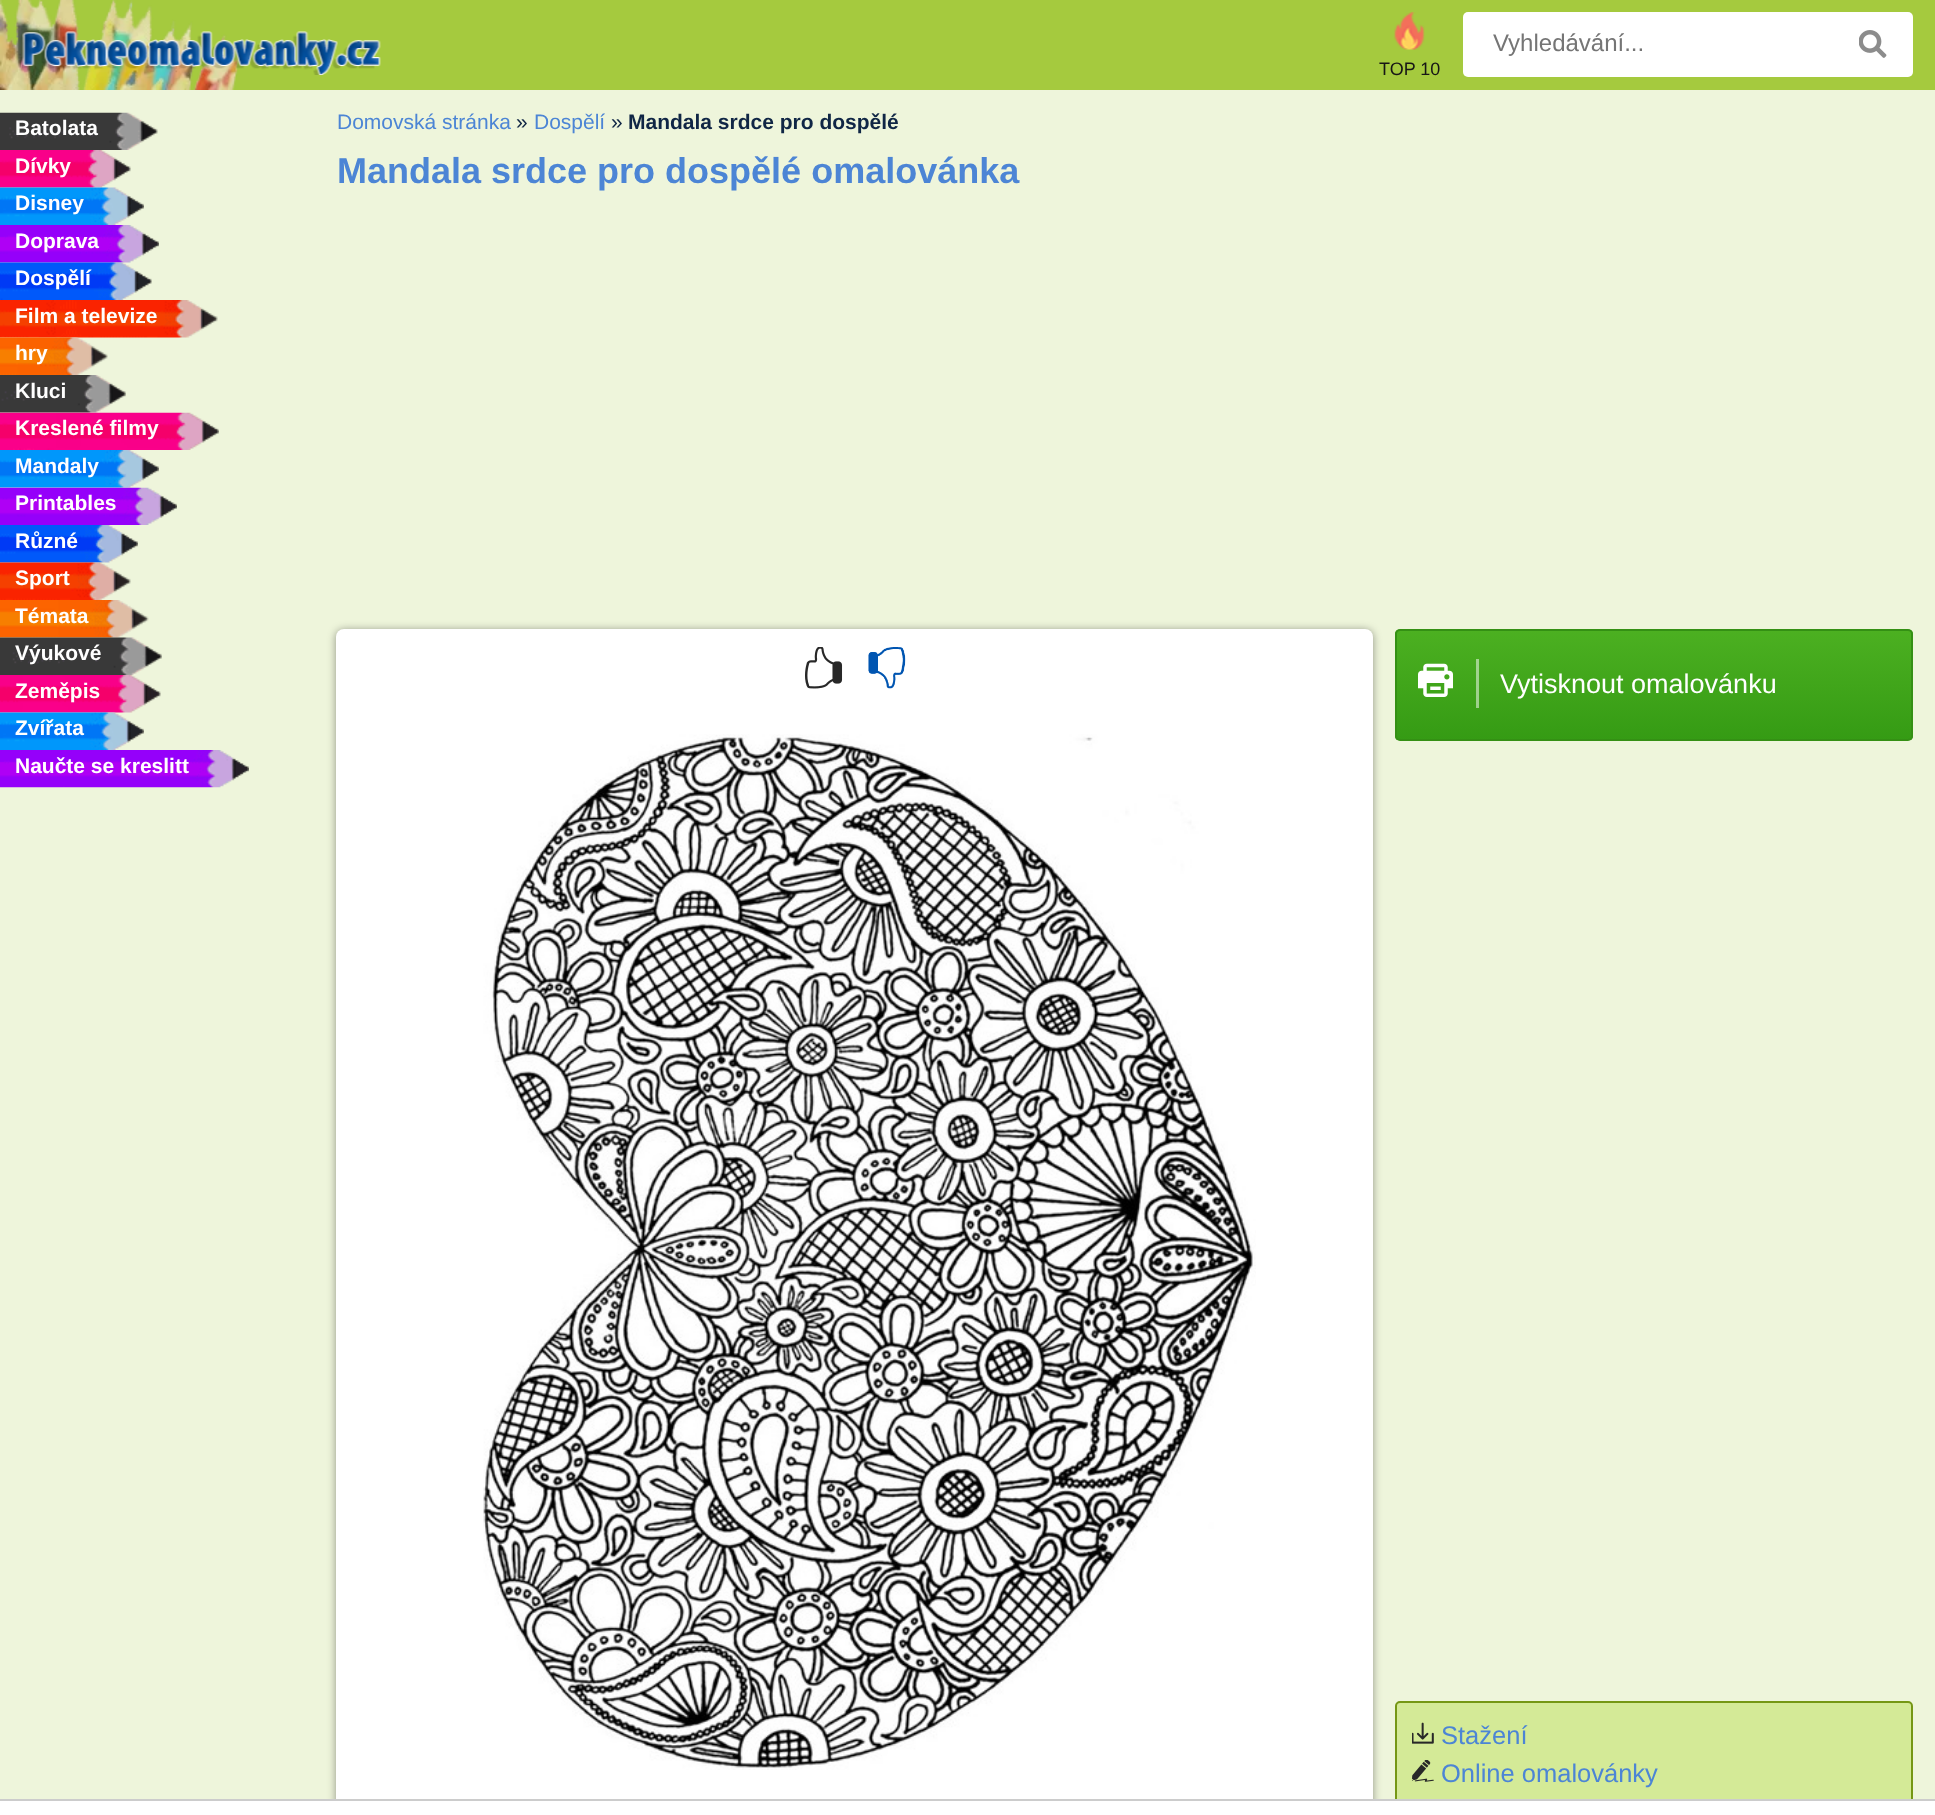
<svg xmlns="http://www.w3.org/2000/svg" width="1935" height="1815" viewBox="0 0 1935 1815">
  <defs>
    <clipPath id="clip1"><rect x="1395" y="629" width="518" height="112" rx="5"/></clipPath>
    <linearGradient id="g1" gradientUnits="userSpaceOnUse" x1="1654" y1="630" x2="1654" y2="740"><stop offset="0" stop-color="rgb(76,176,33)"/><stop offset="1" stop-color="rgb(53,155,20)"/></linearGradient>
    <linearGradient id="g2" gradientUnits="userSpaceOnUse" x1="1654" y1="630" x2="1654" y2="740"><stop offset="0" stop-color="rgb(166,216,144)"/><stop offset="1" stop-color="rgb(154,205,138)"/></linearGradient>
  </defs>
  <rect width="100%" height="100%" fill="rgb(238,245,219)"/>
  <rect x="0" y="0" width="1935" height="90" fill="rgb(165,202,62)"/>
  <image x="0" y="0" width="239" height="90" href="pic1.png"/>
  <image x="22" y="31" width="359" height="44" href="pic2.png"/>
  <rect x="1463" y="12" width="450" height="65" rx="5" fill="rgb(255,255,255)"/>
  <text x="1493" y="51" font-family="Liberation Sans" font-size="24" fill="rgb(117,117,117)">Vyhledávání...</text>
  <image x="1859" y="30" width="28" height="28" href="pic3.png"/>
  <image x="1394" y="12" width="31" height="38" href="pic4.png"/>
  <text x="1379" y="75" font-family="Liberation Sans" font-size="18" fill="rgb(23,22,22)">TOP 10</text>
  <image x="0" y="112" width="158" height="38" href="pic5.png"/>
  <text x="15" y="135" font-family="Liberation Sans" font-size="21" font-weight="bold" fill="rgb(255,255,255)">Batolata</text>
  <image x="0" y="150" width="131" height="38" href="pic6.png"/>
  <text x="15" y="173" font-family="Liberation Sans" font-size="21" font-weight="bold" fill="rgb(255,255,255)">Dívky</text>
  <image x="0" y="187" width="144" height="38" href="pic7.png"/>
  <text x="15" y="210" font-family="Liberation Sans" font-size="21" font-weight="bold" fill="rgb(255,255,255)">Disney</text>
  <image x="0" y="225" width="159" height="38" href="pic8.png"/>
  <text x="15" y="248" font-family="Liberation Sans" font-size="21" font-weight="bold" fill="rgb(255,255,255)">Doprava</text>
  <image x="0" y="262" width="152" height="38" href="pic9.png"/>
  <text x="15" y="285" font-family="Liberation Sans" font-size="21" font-weight="bold" fill="rgb(255,255,255)">Dospělí</text>
  <image x="0" y="300" width="218" height="38" href="pic10.png"/>
  <text x="15" y="323" font-family="Liberation Sans" font-size="21" font-weight="bold" fill="rgb(255,255,255)">Film a televize</text>
  <image x="0" y="337" width="108" height="38" href="pic11.png"/>
  <text x="15" y="360" font-family="Liberation Sans" font-size="21" font-weight="bold" fill="rgb(255,255,255)">hry</text>
  <image x="0" y="375" width="126" height="38" href="pic12.png"/>
  <text x="15" y="398" font-family="Liberation Sans" font-size="21" font-weight="bold" fill="rgb(255,255,255)">Kluci</text>
  <image x="0" y="412" width="219" height="38" href="pic13.png"/>
  <text x="15" y="435" font-family="Liberation Sans" font-size="21" font-weight="bold" fill="rgb(255,255,255)">Kreslené filmy</text>
  <image x="0" y="450" width="159" height="38" href="pic14.png"/>
  <text x="15" y="473" font-family="Liberation Sans" font-size="21" font-weight="bold" fill="rgb(255,255,255)">Mandaly</text>
  <image x="0" y="487" width="177" height="38" href="pic15.png"/>
  <text x="15" y="510" font-family="Liberation Sans" font-size="21" font-weight="bold" fill="rgb(255,255,255)">Printables</text>
  <image x="0" y="525" width="138" height="38" href="pic16.png"/>
  <text x="15" y="548" font-family="Liberation Sans" font-size="21" font-weight="bold" fill="rgb(255,255,255)">Různé</text>
  <image x="0" y="562" width="131" height="38" href="pic17.png"/>
  <text x="15" y="585" font-family="Liberation Sans" font-size="21" font-weight="bold" fill="rgb(255,255,255)">Sport</text>
  <image x="0" y="600" width="149" height="38" href="pic18.png"/>
  <text x="15" y="623" font-family="Liberation Sans" font-size="21" font-weight="bold" fill="rgb(255,255,255)">Témata</text>
  <image x="0" y="637" width="162" height="38" href="pic19.png"/>
  <text x="15" y="660" font-family="Liberation Sans" font-size="21" font-weight="bold" fill="rgb(255,255,255)">Výukové</text>
  <image x="0" y="675" width="161" height="38" href="pic20.png"/>
  <text x="15" y="698" font-family="Liberation Sans" font-size="21" font-weight="bold" fill="rgb(255,255,255)">Zeměpis</text>
  <image x="0" y="712" width="144" height="38" href="pic21.png"/>
  <text x="15" y="735" font-family="Liberation Sans" font-size="21" font-weight="bold" fill="rgb(255,255,255)">Zvířata</text>
  <image x="0" y="750" width="249" height="38" href="pic22.png"/>
  <text x="15" y="773" font-family="Liberation Sans" font-size="21" font-weight="bold" fill="rgb(255,255,255)">Naučte se kreslitt</text>
  <text x="337" y="129" font-family="Liberation Sans" font-size="21" fill="rgb(76,133,213)">Domovská stránka</text>
  <text x="516" y="129" font-family="Liberation Sans" font-size="21" fill="rgb(16,38,69)">»</text>
  <text x="534" y="129" font-family="Liberation Sans" font-size="21" fill="rgb(76,133,213)">Dospělí</text>
  <text x="611" y="129" font-family="Liberation Sans" font-size="21" fill="rgb(16,38,69)">»</text>
  <text x="628" y="129" font-family="Liberation Sans" font-size="21" font-weight="bold" fill="rgb(16,38,69)">Mandala srdce pro dospělé</text>
  <text x="337" y="183" font-family="Liberation Sans" font-size="36" font-weight="bold" fill="rgb(76,133,213)">Mandala srdce pro dospělé omalovánka</text>
  <rect x="336" y="630" width="1037" height="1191" rx="8" fill="rgba(0,0,0,0.4)" filter="blur(4px)"/>
  <rect x="336" y="629" width="1037" height="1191" rx="8" fill="rgb(255,255,255)"/>
  <image x="805" y="647" width="38" height="42" href="pic23.png"/>
  <image x="868" y="647" width="38" height="42" href="pic24.png"/>
  <image x="483" y="734" width="773" height="1036" href="pic25.png"/>
  <g clip-path="url(#clip1)">
    <rect x="1395" y="630" width="518" height="110" fill="url(#g1)"/>
  </g>
  <rect x="1476" y="659" width="3" height="49" fill="url(#g2)"/>
  <rect x="1396" y="630" width="516" height="110" rx="4" fill="none" stroke="rgb(52,144,20)" stroke-width="2"/>
  <image x="1418" y="663" width="35" height="34" href="pic26.png"/>
  <text x="1500" y="693" font-family="Liberation Sans" font-size="27" fill="rgb(255,255,255)">Vytisknout omalovánku</text>
  <rect x="1396" y="1702" width="516" height="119" rx="4" fill="rgb(212,234,151)" stroke="rgb(117,151,20)" stroke-width="2"/>
  <image x="1412" y="1722" width="22" height="22" href="pic27.png"/>
  <text x="1441" y="1744" font-family="Liberation Sans" font-size="25.5" fill="rgb(76,133,213)">Stažení</text>
  <image x="1412" y="1760" width="22" height="22" href="pic28.png"/>
  <text x="1441" y="1782" font-family="Liberation Sans" font-size="25.5" fill="rgb(76,133,213)">Online omalovánky</text>
  <rect x="0" y="1801" width="1935" height="14" fill="rgb(255,255,255)"/>
  <rect x="0" y="1799" width="1935" height="2" fill="rgb(204,204,204)"/>
</svg>
